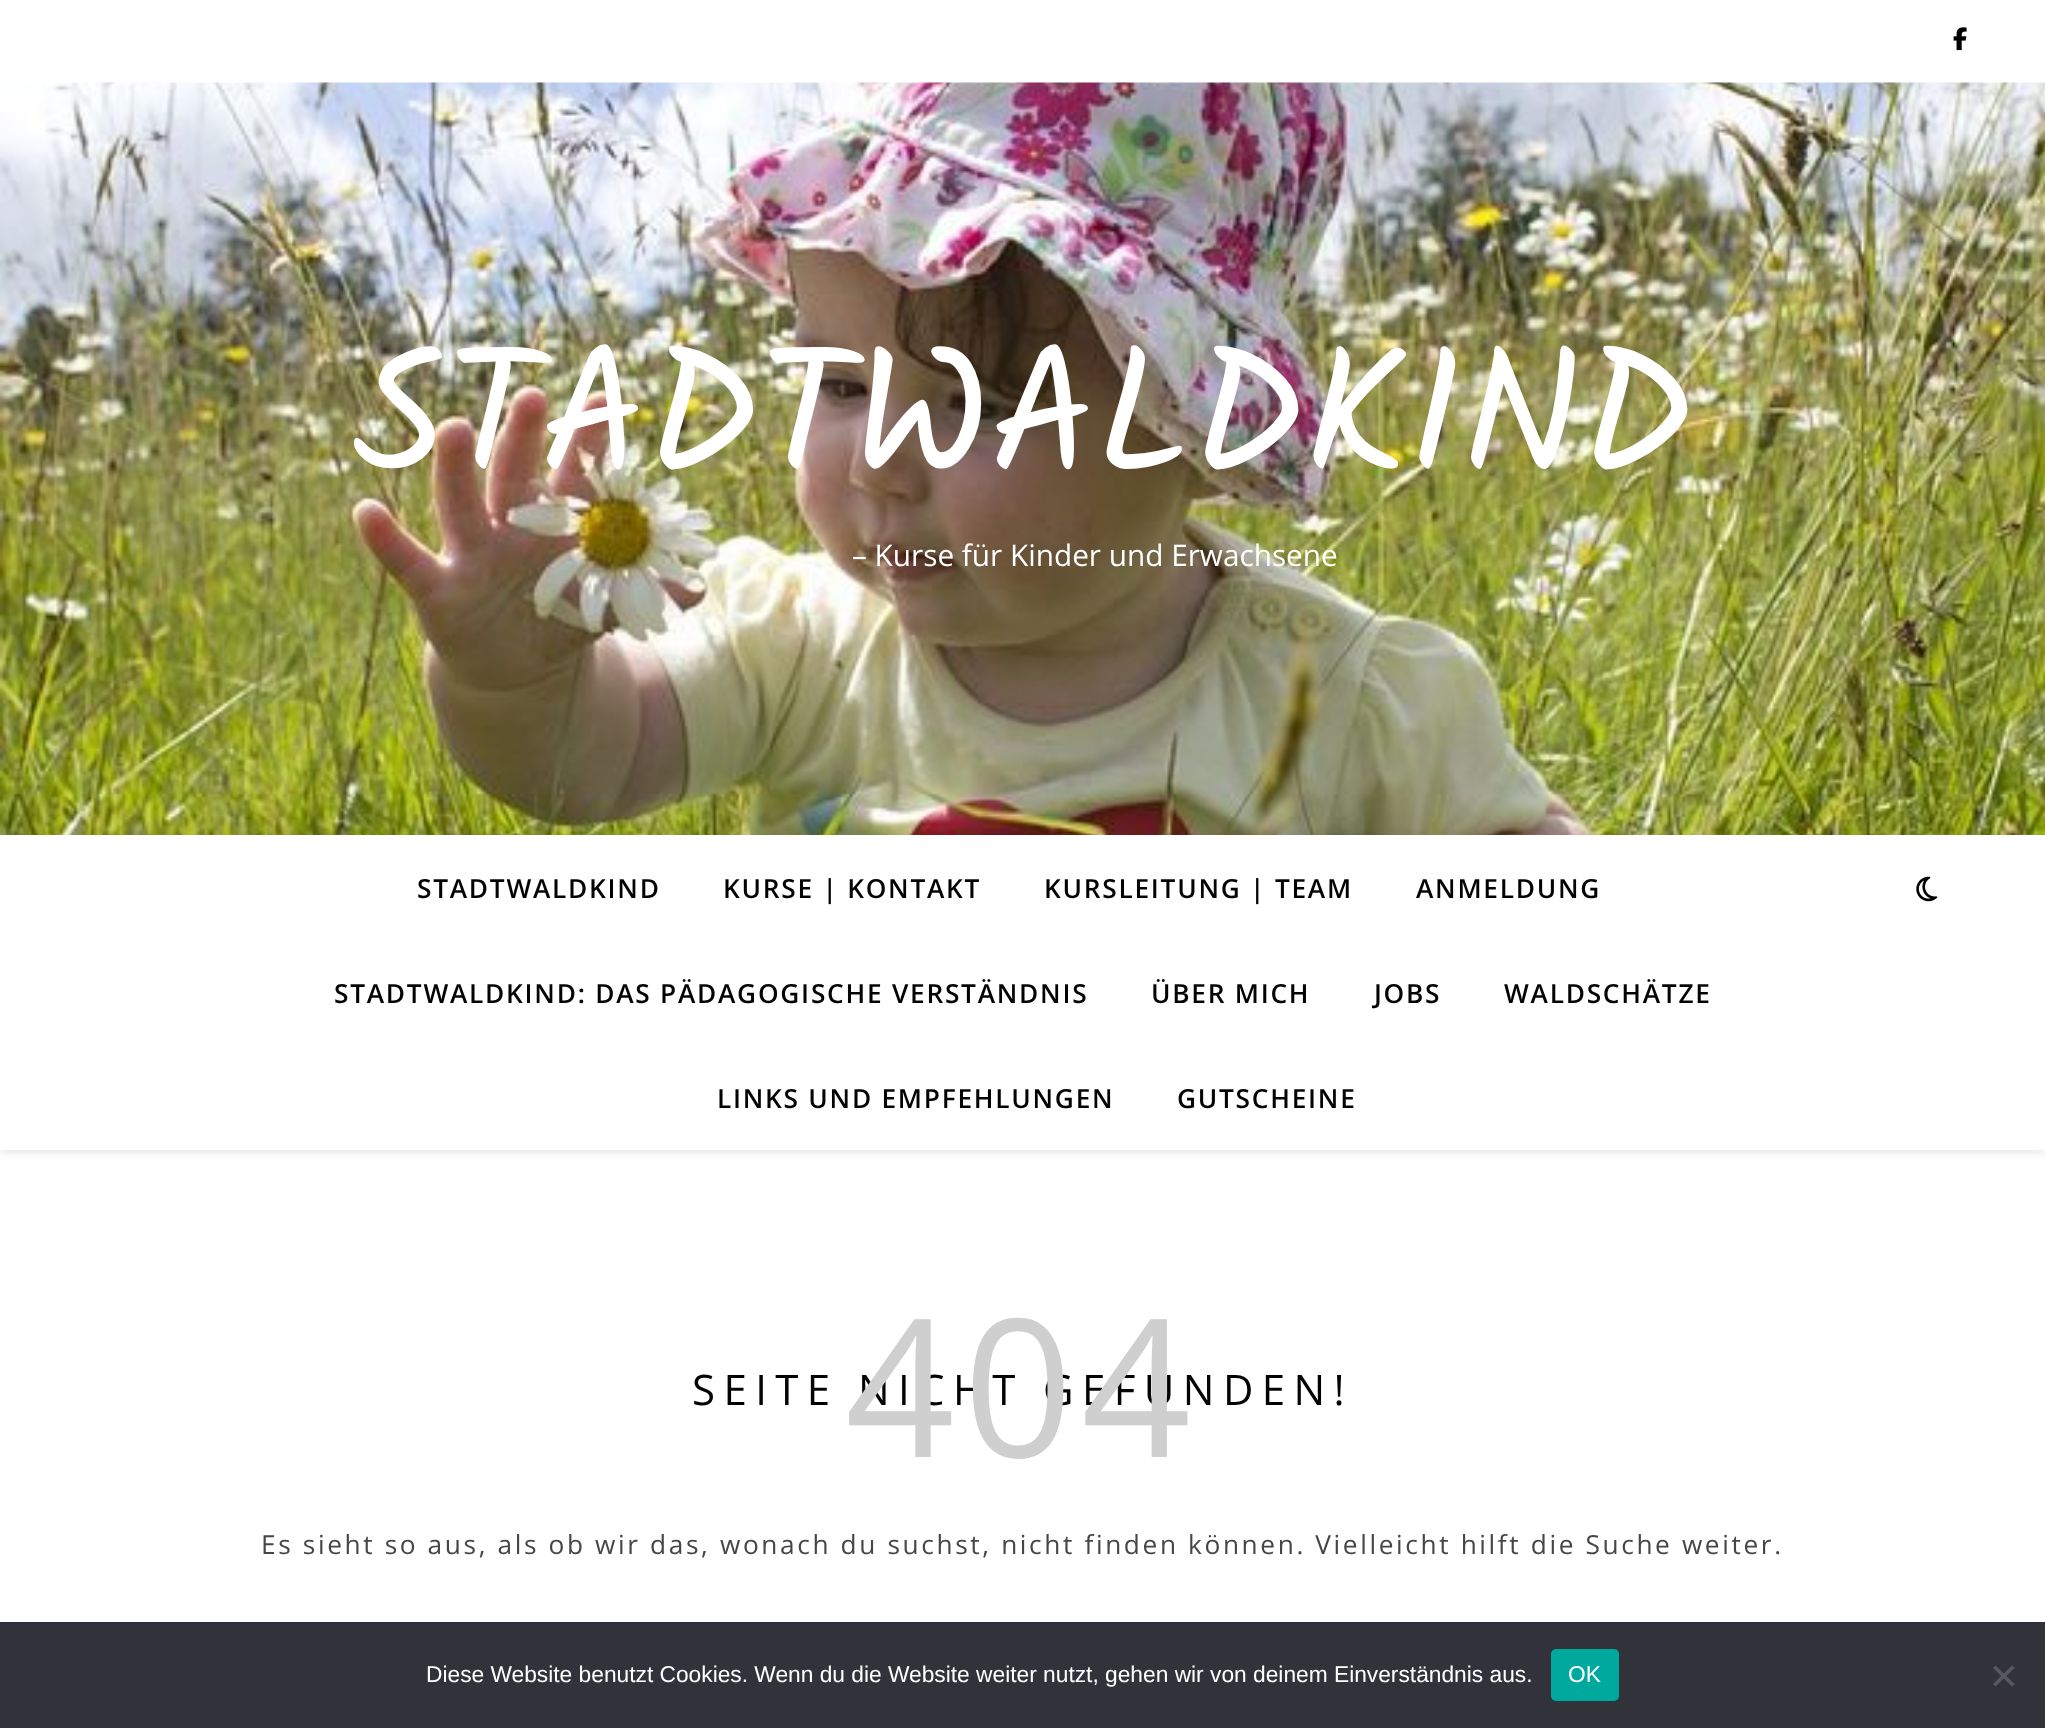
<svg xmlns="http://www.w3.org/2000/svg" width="2045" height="1728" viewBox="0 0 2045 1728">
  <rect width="100%" height="100%" fill="rgb(255,255,255)"/>
  <image x="1953" y="27" width="14" height="24" href="pic1.png"/>
  <image x="0" y="82" width="2045" height="753" href="pic2.png"/>
  <text x="353" y="472" font-family="Kalam" font-size="175" fill="rgb(255,255,255)">STADTWALDKIND</text>
  <text x="852" y="566" font-family="Open Sans" font-size="29.75" fill="rgb(255,255,255)">– Kurse für Kinder und Erwachsene</text>
  <rect x="0" y="837" width="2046" height="315" fill="rgba(0,0,0,0.1)" filter="blur(4.5px)"/>
  <rect x="0" y="835" width="2045" height="315" fill="rgb(255,255,255)"/>
  <g font-family="Open Sans" font-size="26.25" font-weight="600" letter-spacing="1.75" fill="rgb(3,3,3)">
    <text x="417" y="898">STADTWALDKIND</text>
    <text x="723" y="898">KURSE | KONTAKT</text>
    <text x="1044" y="898">KURSLEITUNG | TEAM</text>
    <text x="1416" y="898">ANMELDUNG</text>
    <text x="334" y="1003">STADTWALDKIND: DAS PÄDAGOGISCHE VERSTÄNDNIS</text>
    <text x="1151" y="1003">ÜBER MICH</text>
    <text x="1374" y="1003">JOBS</text>
    <text x="1504" y="1003">WALDSCHÄTZE</text>
    <text x="717" y="1108">LINKS UND EMPFEHLUNGEN</text>
    <text x="1177" y="1108">GUTSCHEINE</text>
  </g>
  <image x="1916" y="876" width="22" height="26" href="pic3.png"/>
  <text x="692" y="1405" font-family="Open Sans" font-size="42" letter-spacing="8.4" fill="rgb(3,3,3)">SEITE NICHT GEFUNDEN!</text>
  <text x="845" y="1457" font-family="Open Sans" font-size="192" letter-spacing="8.4" fill="rgb(207,207,207)">404</text>
  <text x="261" y="1554" font-family="Open Sans" font-size="26.25" letter-spacing="2.62" fill="rgb(70,70,70)">Es sieht so aus, als ob wir das, wonach du suchst, nicht finden können. Vielleicht hilft die Suche weiter.</text>
  <rect x="0" y="1622" width="2045" height="106" fill="rgb(50,50,58)"/>
  <text x="426" y="1682" font-family="Liberation Sans" font-size="22.75" fill="rgb(255,255,255)">Diese Website benutzt Cookies. Wenn du die Website weiter nutzt, gehen wir von deinem Einverständnis aus.</text>
  <rect x="1551" y="1649" width="68" height="52" rx="5" fill="rgb(0,169,157)"/>
  <text x="1568" y="1682" font-family="Liberation Sans" font-size="22.75" fill="rgb(255,255,255)">OK</text>
  <path d="M2012 1665.5L2014.5 1668L1995.5 1686.5L1993 1684Z" fill="rgb(89,89,93)"/>
  <path d="M1993 1668L1995.5 1665.5L2014.5 1684L2012 1686.5Z" fill="rgb(89,89,93)"/>
</svg>
